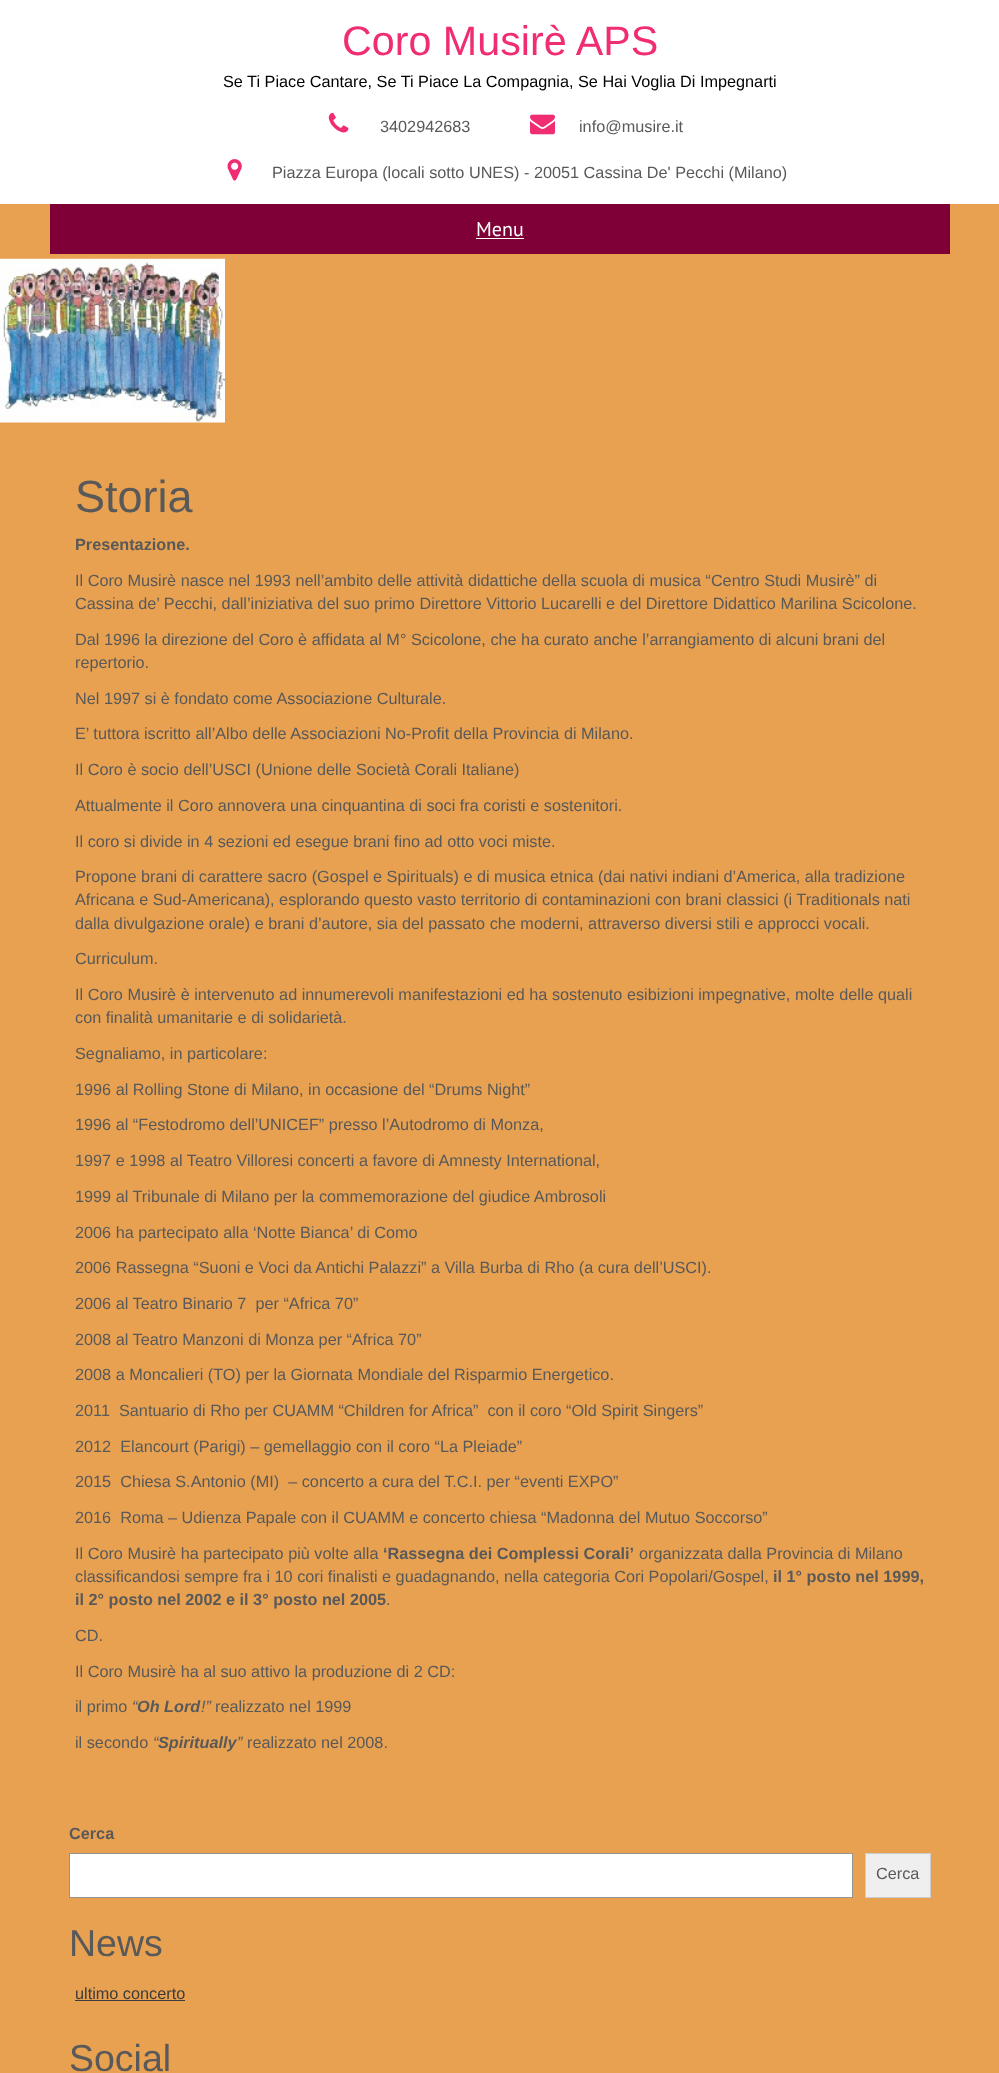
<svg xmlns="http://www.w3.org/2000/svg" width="999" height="2073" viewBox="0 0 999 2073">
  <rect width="100%" height="100%" fill="rgb(232,161,81)"/>
  <rect x="0" y="0" width="999" height="204" fill="rgb(255,255,255)"/>
  <text x="342" y="55" font-family="Liberation Sans" font-size="41.25" fill="rgb(240,45,115)">Coro Musirè APS</text>
  <text x="223" y="87" font-family="Liberation Sans" font-size="16.25" fill="rgb(0,0,0)">Se Ti Piace Cantare, Se Ti Piace La Compagnia, Se Hai Voglia Di Impegnarti</text>
  <image x="328" y="112" width="21" height="21" href="pic1.png"/>
  <text x="380" y="132" font-family="Liberation Sans" font-size="16.25" fill="rgb(89,89,89)">3402942683</text>
  <image x="530" y="114" width="25" height="21" href="pic2.png"/>
  <text x="579" y="132" font-family="Liberation Sans" font-size="16.25" fill="rgb(89,89,89)">info@musire.it</text>
  <image x="227" y="159" width="15" height="22" href="pic3.png"/>
  <text x="272" y="178" font-family="Liberation Sans" font-size="16.25" fill="rgb(89,89,89)">Piazza Europa (locali sotto UNES) - 20051 Cassina De' Pecchi (Milano)</text>
  <rect x="50" y="204" width="900" height="50" fill="rgb(127,0,54)"/>
  <text x="476" y="236" font-family="PT Sans" font-size="20" fill="rgb(255,255,255)">Menu</text>
  <rect x="476" y="238" width="48" height="1" fill="rgb(255,255,255)"/>
  <image x="0" y="258" width="225" height="165" href="pic4.png"/>
  <text x="75" y="512" font-family="Liberation Sans" font-size="45" fill="rgb(89,89,89)">Storia</text>
  <text x="75" y="550" font-family="Liberation Sans" font-size="16.25" font-weight="bold" fill="rgb(89,89,89)">Presentazione.</text>
  <g font-family="Liberation Sans" font-size="16.25" fill="rgb(89,89,89)">
    <text>
      <tspan x="75" y="586">Il Coro Musirè nasce nel 1993 nell’ambito delle attività didattiche della scuola di musica “Centro Studi Musirè” di</tspan>
      <tspan x="75" y="609">Cassina de’ Pecchi, dall’iniziativa del suo primo Direttore Vittorio Lucarelli e del Direttore Didattico Marilina Scicolone.</tspan>
    </text>
    <text>
      <tspan x="75" y="645">Dal 1996 la direzione del Coro è affidata al M° Scicolone, che ha curato anche l’arrangiamento di alcuni brani del</tspan>
      <tspan x="75" y="668">repertorio.</tspan>
    </text>
    <text x="75" y="704">Nel 1997 si è fondato come Associazione Culturale.</text>
    <text x="75" y="739">E’ tuttora iscritto all’Albo delle Associazioni No-Profit della Provincia di Milano.</text>
    <text x="75" y="775">Il Coro è socio dell’USCI (Unione delle Società Corali Italiane)</text>
    <text x="75" y="811">Attualmente il Coro annovera una cinquantina di soci fra coristi e sostenitori.</text>
    <text x="75" y="847">Il coro si divide in 4 sezioni ed esegue brani fino ad otto voci miste.</text>
    <text>
      <tspan x="75" y="882">Propone brani di carattere sacro (Gospel e Spirituals) e di musica etnica (dai nativi indiani d’America, alla tradizione</tspan>
      <tspan x="75" y="905">Africana e Sud-Americana), esplorando questo vasto territorio di contaminazioni con brani classici (i Traditionals nati</tspan>
      <tspan x="75" y="929">dalla divulgazione orale) e brani d’autore, sia del passato che moderni, attraverso diversi stili e approcci vocali.</tspan>
    </text>
    <text x="75" y="964">Curriculum.</text>
    <text>
      <tspan x="75" y="1000">Il Coro Musirè è intervenuto ad innumerevoli manifestazioni ed ha sostenuto esibizioni impegnative, molte delle quali</tspan>
      <tspan x="75" y="1023">con finalità umanitarie e di solidarietà.</tspan>
    </text>
    <text x="75" y="1059">Segnaliamo, in particolare:</text>
    <text x="75" y="1095">1996 al Rolling Stone di Milano, in occasione del “Drums Night”</text>
    <text x="75" y="1130">1996 al “Festodromo dell’UNICEF” presso l’Autodromo di Monza,</text>
    <text x="75" y="1166">1997 e 1998 al Teatro Villoresi concerti a favore di Amnesty International,</text>
    <text x="75" y="1202">1999 al Tribunale di Milano per la commemorazione del giudice Ambrosoli</text>
    <text x="75" y="1238">2006 ha partecipato alla ‘Notte Bianca’ di Como</text>
    <text x="75" y="1273">2006 Rassegna “Suoni e Voci da Antichi Palazzi” a Villa Burba di Rho (a cura dell’USCI).</text>
    <text x="75" y="1309" xml:space="preserve">2006 al Teatro Binario 7  per “Africa 70”</text>
    <text x="75" y="1345">2008 al Teatro Manzoni di Monza per “Africa 70”</text>
    <text x="75" y="1380">2008 a Moncalieri (TO) per la Giornata Mondiale del Risparmio Energetico.</text>
    <text x="75" y="1416" xml:space="preserve">2011  Santuario di Rho per CUAMM “Children for Africa”  con il coro “Old Spirit Singers”</text>
    <text x="75" y="1452" xml:space="preserve">2012  Elancourt (Parigi) – gemellaggio con il coro “La Pleiade”</text>
    <text x="75" y="1487" xml:space="preserve">2015  Chiesa S.Antonio (MI)  – concerto a cura del T.C.I. per “eventi EXPO”</text>
    <text x="75" y="1523" xml:space="preserve">2016  Roma – Udienza Papale con il CUAMM e concerto chiesa “Madonna del Mutuo Soccorso”</text>
    <text x="75" y="1559">Il Coro Musirè ha partecipato più volte alla</text>
  </g>
  <text x="383" y="1559" font-family="Liberation Sans" font-size="16.25" font-weight="bold" fill="rgb(89,89,89)">‘Rassegna dei Complessi Corali’</text>
  <g font-family="Liberation Sans" font-size="16.25" fill="rgb(89,89,89)">
    <text x="639" y="1559">organizzata dalla Provincia di Milano</text>
    <text x="75" y="1582">classificandosi sempre fra i 10 cori finalisti e guadagnando, nella categoria Cori Popolari/Gospel,</text>
  </g>
  <g font-family="Liberation Sans" font-size="16.25" font-weight="bold" fill="rgb(89,89,89)">
    <text x="773" y="1582">il 1° posto nel 1999,</text>
    <text x="75" y="1605">il 2° posto nel 2002 e il 3° posto nel 2005</text>
  </g>
  <g font-family="Liberation Sans" font-size="16.25" fill="rgb(89,89,89)">
    <text x="386" y="1605">.</text>
    <text x="75" y="1641">CD.</text>
    <text x="75" y="1677">Il Coro Musirè ha al suo attivo la produzione di 2 CD:</text>
    <text x="75" y="1712">il primo</text>
  </g>
  <text x="132" y="1712" font-family="Liberation Sans" font-size="16.25" font-style="italic" fill="rgb(89,89,89)">“</text>
  <text x="137" y="1712" font-family="Liberation Sans" font-size="16.25" font-weight="bold" font-style="italic" fill="rgb(89,89,89)">Oh Lord</text>
  <text x="201" y="1712" font-family="Liberation Sans" font-size="16.25" font-style="italic" fill="rgb(89,89,89)">!”</text>
  <g font-family="Liberation Sans" font-size="16.25" fill="rgb(89,89,89)">
    <text x="215" y="1712">realizzato nel 1999</text>
    <text x="75" y="1748">il secondo</text>
  </g>
  <text x="153" y="1748" font-family="Liberation Sans" font-size="16.25" font-style="italic" fill="rgb(89,89,89)">“</text>
  <text x="158" y="1748" font-family="Liberation Sans" font-size="16.25" font-weight="bold" font-style="italic" fill="rgb(89,89,89)">Spiritually</text>
  <text x="237" y="1748" font-family="Liberation Sans" font-size="16.25" font-style="italic" fill="rgb(89,89,89)">”</text>
  <text x="247" y="1748" font-family="Liberation Sans" font-size="16.25" fill="rgb(89,89,89)">realizzato nel 2008.</text>
  <text x="69" y="1839" font-family="Liberation Sans" font-size="16.25" font-weight="bold" fill="rgb(89,89,89)">Cerca</text>
  <rect x="69.5" y="1853.5" width="783" height="44" fill="rgb(255,255,255)" stroke="rgb(148,148,148)"/>
  <rect x="865.5" y="1853.5" width="65" height="44" fill="rgb(239,239,239)" stroke="rgb(204,204,204)"/>
  <text x="876" y="1879" font-family="Liberation Sans" font-size="16.25" fill="rgb(89,89,89)">Cerca</text>
  <text x="69" y="1956" font-family="Liberation Sans" font-size="37.5" fill="rgb(89,89,89)">News</text>
  <text x="75" y="1999" font-family="Liberation Sans" font-size="16.25" fill="rgb(59,59,59)">ultimo concerto</text>
  <rect x="75" y="2000" width="110" height="1" fill="rgb(59,59,59)"/>
  <text x="69" y="2071" font-family="Liberation Sans" font-size="37.5" fill="rgb(89,89,89)">Social</text>
</svg>
